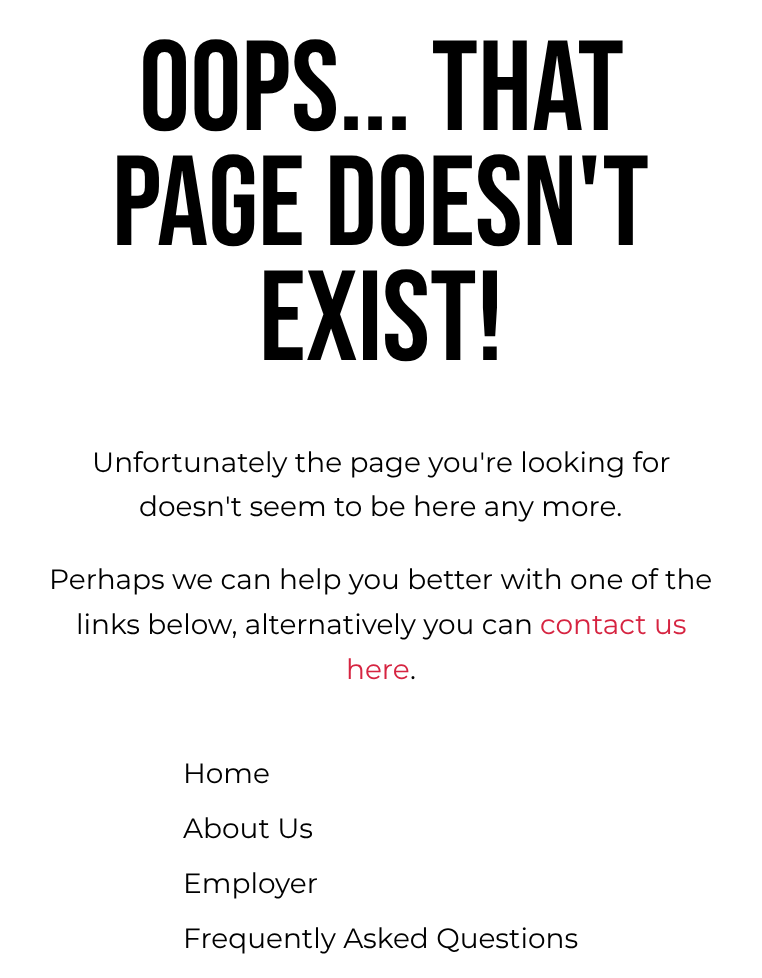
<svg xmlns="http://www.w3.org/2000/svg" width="762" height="978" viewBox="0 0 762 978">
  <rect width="100%" height="100%" fill="rgb(255,255,255)"/>
  <g font-family="Bebas Neue" font-size="128" fill="rgb(0,0,0)">
    <text x="139" y="130">Oops... That</text>
    <text x="112" y="245">Page Doesn't</text>
    <text x="259" y="360">Exist!</text>
  </g>
  <g font-family="Montserrat" font-size="28" fill="rgb(0,0,0)">
    <text x="92" y="472">Unfortunately the page you're looking for</text>
    <text x="139" y="516">doesn't seem to be here any more.</text>
    <text x="49" y="589">Perhaps we can help you better with one of the</text>
    <text x="76" y="634">links below, alternatively you can</text>
  </g>
  <g font-family="Montserrat" font-size="28" fill="rgb(214,36,65)">
    <text x="540" y="634">contact us</text>
    <text x="346" y="679">here</text>
  </g>
  <g font-family="Montserrat" font-size="28" fill="rgb(0,0,0)">
    <text x="410" y="679">.</text>
    <text>
      <tspan x="183" y="783">Home</tspan>
      <tspan x="183" y="838">About Us</tspan>
      <tspan x="183" y="893">Employer</tspan>
      <tspan x="183" y="948">Frequently Asked Questions</tspan>
    </text>
  </g>
</svg>
